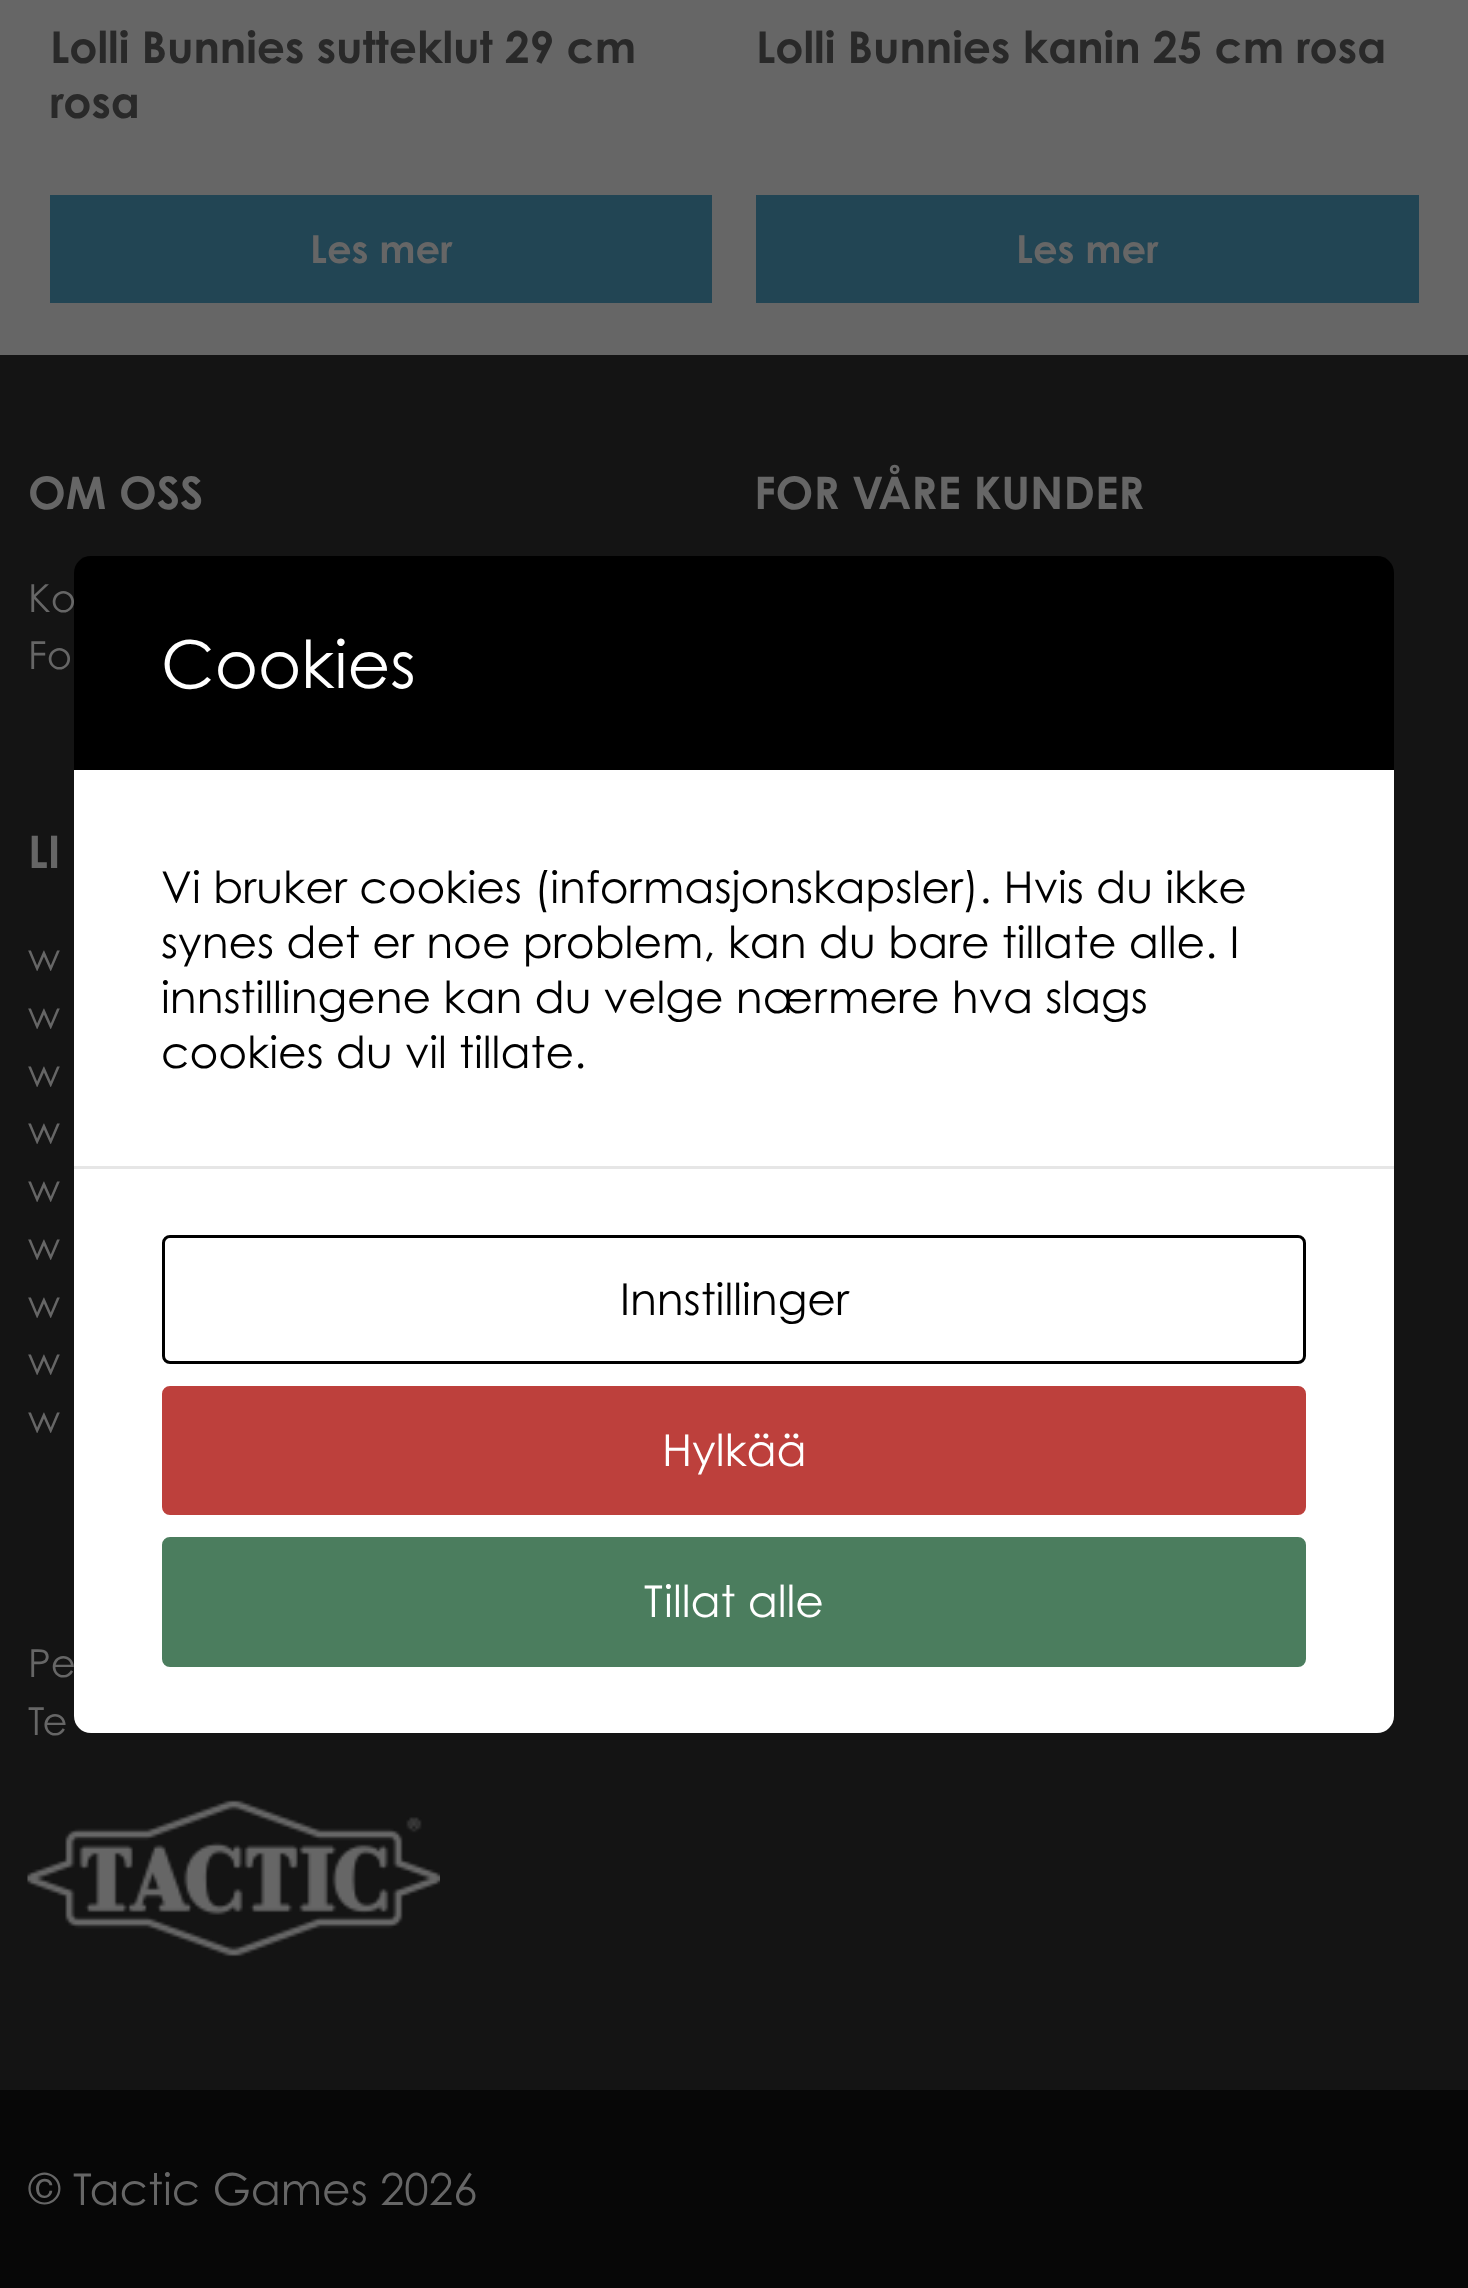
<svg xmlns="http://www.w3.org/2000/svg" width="1468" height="2288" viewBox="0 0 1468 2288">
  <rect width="100%" height="100%" fill="rgb(7,7,7)"/>
  <rect x="0" y="0" width="1468" height="355" fill="rgb(102,102,102)"/>
  <g font-family="Century Gothic" font-size="44" font-weight="bold" fill="rgb(41,41,41)">
    <text>
      <tspan x="50" y="63">Lolli Bunnies sutteklut 29 cm</tspan>
      <tspan x="50" y="118">rosa</tspan>
    </text>
  </g>
  <rect x="50" y="195" width="662" height="108" fill="rgb(34,69,84)"/>
  <text x="310" y="263" font-family="Century Gothic" font-size="38.5" font-weight="bold" fill="rgb(102,102,102)">Les mer</text>
  <text x="756" y="63" font-family="Century Gothic" font-size="44" font-weight="bold" fill="rgb(41,41,41)">Lolli Bunnies kanin 25 cm rosa</text>
  <rect x="756" y="195" width="663" height="108" fill="rgb(34,69,84)"/>
  <text x="1016" y="263" font-family="Century Gothic" font-size="38.5" font-weight="bold" fill="rgb(102,102,102)">Les mer</text>
  <rect x="0" y="355" width="1468" height="1735" fill="rgb(20,20,20)"/>
  <text x="28" y="509" font-family="Century Gothic" font-size="45" font-weight="bold" fill="rgb(102,102,102)">OM OSS</text>
  <g font-family="Century Gothic" font-size="38.5" fill="rgb(102,102,102)">
    <text>
      <tspan x="28" y="612">Ko</tspan>
      <tspan x="28" y="669">Fo</tspan>
    </text>
  </g>
  <g font-family="Century Gothic" font-size="45" font-weight="bold" fill="rgb(102,102,102)">
    <text x="754" y="509">FOR VÅRE KUNDER</text>
    <text x="28" y="868">LI</text>
  </g>
  <g font-family="Century Gothic" font-size="38.5" fill="rgb(102,102,102)">
    <text>
      <tspan x="28" y="971">w</tspan>
      <tspan x="28" y="1029">w</tspan>
      <tspan x="28" y="1087">w</tspan>
      <tspan x="28" y="1144">w</tspan>
      <tspan x="28" y="1202">w</tspan>
      <tspan x="28" y="1260">w</tspan>
      <tspan x="28" y="1318">w</tspan>
      <tspan x="28" y="1375">w</tspan>
      <tspan x="28" y="1433">w</tspan>
    </text>
    <text>
      <tspan x="28" y="1677">Pe</tspan>
      <tspan x="28" y="1735">Te</tspan>
    </text>
  </g>
  <image x="27" y="1800" width="413" height="157" href="pic1.png"/>
  <path d="M91 556H1377C1386.5 556 1394 563.5 1394 573V770H74V573C74 563.5 81.5 556 91 556Z" fill="rgb(0,0,0)"/>
  <text x="161" y="688" font-family="Century Gothic" font-size="66" fill="rgb(255,255,255)">Cookies</text>
  <rect x="74" y="770" width="1320" height="396" fill="rgb(255,255,255)"/>
  <g font-family="Century Gothic" font-size="44" fill="rgb(0,0,0)">
    <text>
      <tspan x="161" y="903">Vi bruker cookies (informasjonskapsler). Hvis du ikke</tspan>
      <tspan x="161" y="958">synes det er noe problem, kan du bare tillate alle. I</tspan>
      <tspan x="161" y="1013">innstillingene kan du velge nærmere hva slags</tspan>
      <tspan x="161" y="1068">cookies du vil tillate.</tspan>
    </text>
  </g>
  <path d="M74 1166H1394V1716C1394 1725.5 1386.5 1733 1377 1733H91C81.5 1733 74 1725.5 74 1716Z" fill="rgb(255,255,255)"/>
  <rect x="74" y="1166" width="1320" height="3" fill="rgb(230,230,230)"/>
  <rect x="163.5" y="1236.5" width="1141" height="126" rx="6.5" fill="none" stroke="rgb(0,0,0)" stroke-width="3"/>
  <text x="620" y="1315" font-family="Century Gothic" font-size="44" fill="rgb(0,0,0)">Innstillinger</text>
  <rect x="163.5" y="1387.5" width="1141" height="126" rx="6.5" fill="rgb(189,64,60)" stroke="rgb(189,64,60)" stroke-width="3"/>
  <text x="662" y="1466" font-family="Century Gothic" font-size="44" fill="rgb(255,255,255)">Hylkää</text>
  <rect x="163.5" y="1538.5" width="1141" height="127" rx="6.5" fill="rgb(75,125,94)" stroke="rgb(75,125,94)" stroke-width="3"/>
  <text x="644" y="1617" font-family="Century Gothic" font-size="44" fill="rgb(255,255,255)">Tillat alle</text>
  <text x="28" y="2205" font-family="Century Gothic" font-size="44" fill="rgb(102,102,102)">© Tactic Games 2026</text>
</svg>
